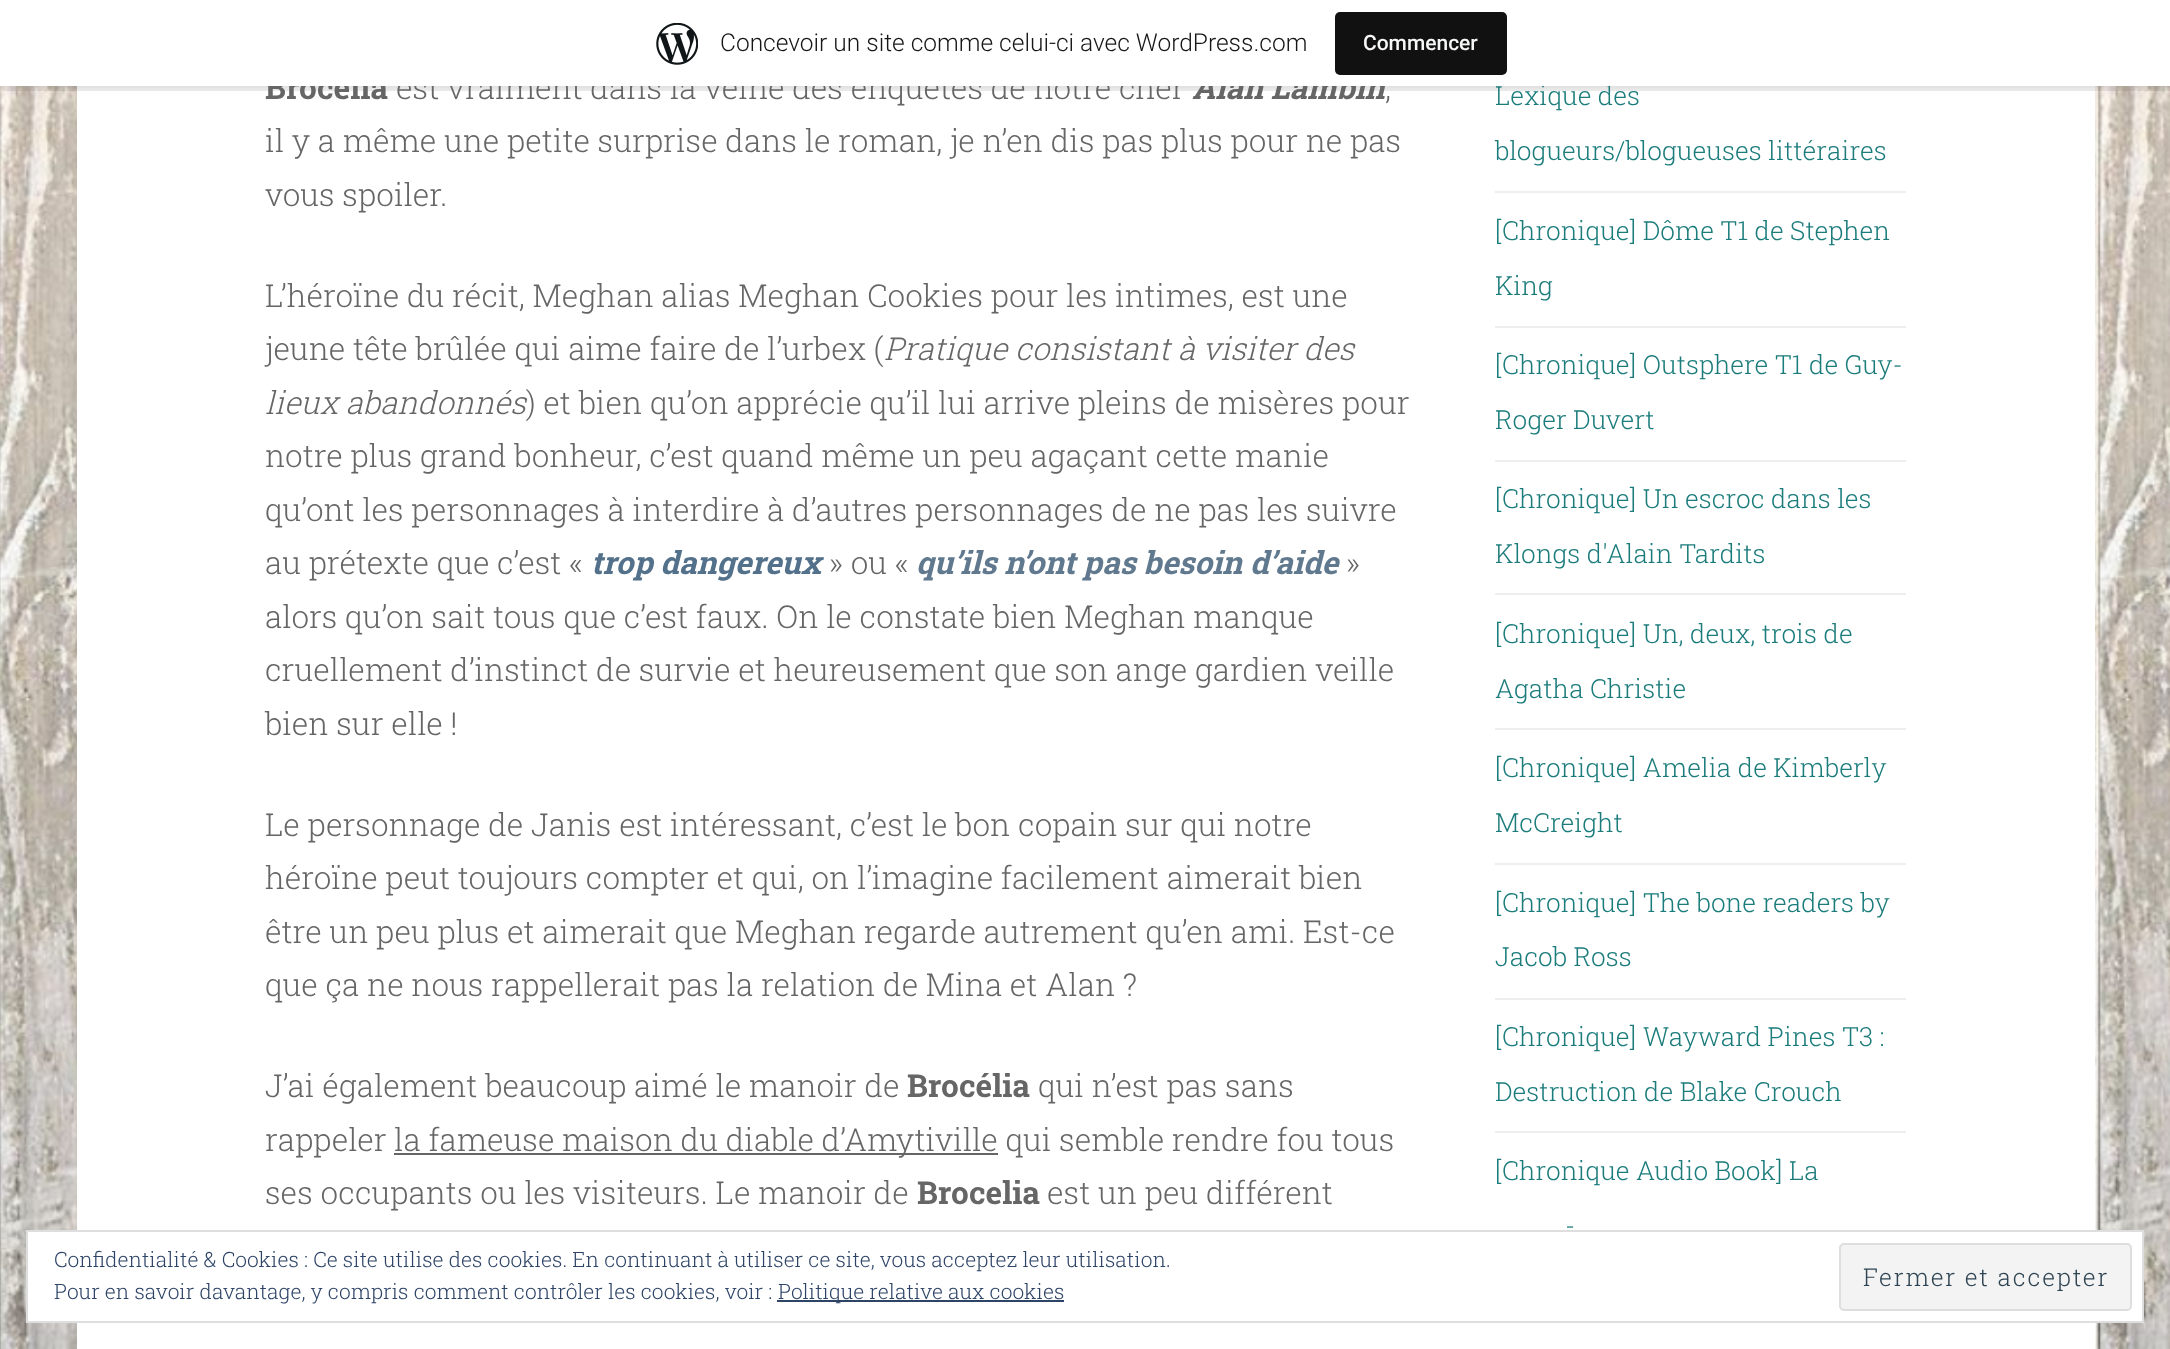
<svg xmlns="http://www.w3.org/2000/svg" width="2170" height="1349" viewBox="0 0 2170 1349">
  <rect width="100%" height="100%" fill="rgb(255,255,255)"/>
  <image x="0" y="86" width="2170" height="1263" href="pic1.png"/>
  <rect x="77" y="86" width="2018" height="1263" fill="rgb(255,255,255)"/>
  <rect x="0" y="2" width="2170" height="86" fill="rgba(0,0,0,0.05)" filter="blur(2px)"/>
  <path d="M2 86V91H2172V5H2170V86Z" fill="rgba(0,0,0,0.08)"/>
  <text x="265" y="99" font-family="Roboto Slab" font-size="31.5" font-weight="bold" fill="rgb(102,102,102)">Brocélia</text>
  <text x="396" y="99" font-family="Roboto Slab" font-size="31.5" font-weight="300" fill="rgb(102,102,102)">est vraiment dans la veine des enquêtes de notre cher</text>
  <text x="1192" y="99" font-family="Roboto Slab" font-size="31.5" font-weight="bold" font-style="italic" fill="rgb(102,102,102)">Alan Lambin</text>
  <text x="1495" y="105" font-family="Roboto Slab" font-size="26.25" font-weight="300" fill="rgb(28,124,124)">Lexique des</text>
  <rect x="0" y="0" width="2170" height="86" fill="rgb(255,255,255)"/>
  <image x="656" y="23" width="42" height="42" href="pic2.png"/>
  <text x="720" y="51" font-family="Roboto" font-size="24.5" font-weight="300" fill="rgb(23,23,23)">Concevoir un site comme celui-ci avec WordPress.com</text>
  <rect x="1335" y="12" width="172" height="63" rx="5" fill="rgb(17,17,17)"/>
  <text x="1363" y="50" font-family="Roboto" font-size="21" font-weight="500" fill="rgb(246,247,247)">Commencer</text>
  <g font-family="Roboto Slab" font-size="31.5" font-weight="300" fill="rgb(102,102,102)">
    <text x="1385" y="99">,</text>
    <text>
      <tspan x="265" y="152">il y a même une petite surprise dans le roman, je n’en dis pas plus pour ne pas</tspan>
      <tspan x="265" y="206">vous spoiler.</tspan>
    </text>
    <text>
      <tspan x="265" y="307">L’héroïne du récit, Meghan alias Meghan Cookies pour les intimes, est une</tspan>
      <tspan x="265" y="360">jeune tête brûlée qui aime faire de l’urbex (</tspan>
    </text>
  </g>
  <g font-family="Roboto Slab" font-size="31.5" font-weight="300" font-style="italic" fill="rgb(102,102,102)">
    <text x="884" y="360">Pratique consistant à visiter des</text>
    <text x="265" y="414">lieux abandonnés</text>
  </g>
  <g font-family="Roboto Slab" font-size="31.5" font-weight="300" fill="rgb(102,102,102)">
    <text x="526" y="414">) et bien qu’on apprécie qu’il lui arrive pleins de misères pour</text>
    <text>
      <tspan x="265" y="467">notre plus grand bonheur, c’est quand même un peu agaçant cette manie</tspan>
      <tspan x="265" y="521">qu’ont les personnages à interdire à d’autres personnages de ne pas les suivre</tspan>
      <tspan x="265" y="574">au prétexte que c’est «</tspan>
    </text>
  </g>
  <text x="591" y="574" font-family="Roboto Slab" font-size="31.5" font-weight="bold" font-style="italic" fill="rgb(83,113,139)">trop dangereux</text>
  <text x="829" y="574" font-family="Roboto Slab" font-size="31.5" font-weight="300" fill="rgb(102,102,102)">» ou «</text>
  <text x="916" y="574" font-family="Roboto Slab" font-size="31.5" font-weight="bold" font-style="italic" fill="rgb(97,121,142)">qu’ils n’ont pas besoin d’aide</text>
  <g font-family="Roboto Slab" font-size="31.5" font-weight="300" fill="rgb(102,102,102)">
    <text x="1346" y="574">»</text>
    <text>
      <tspan x="265" y="628">alors qu’on sait tous que c’est faux. On le constate bien Meghan manque</tspan>
      <tspan x="265" y="681">cruellement d’instinct de survie et heureusement que son ange gardien veille</tspan>
      <tspan x="265" y="735">bien sur elle !</tspan>
    </text>
    <text>
      <tspan x="265" y="836">Le personnage de Janis est intéressant, c’est le bon copain sur qui notre</tspan>
      <tspan x="265" y="889">héroïne peut toujours compter et qui, on l’imagine facilement aimerait bien</tspan>
      <tspan x="265" y="943">être un peu plus et aimerait que Meghan regarde autrement qu’en ami. Est-ce</tspan>
      <tspan x="265" y="996">que ça ne nous rappellerait pas la relation de Mina et Alan ?</tspan>
    </text>
    <text x="265" y="1097">J’ai également beaucoup aimé le manoir de</text>
  </g>
  <text x="907" y="1097" font-family="Roboto Slab" font-size="31.5" font-weight="bold" fill="rgb(102,102,102)">Brocélia</text>
  <g font-family="Roboto Slab" font-size="31.5" font-weight="300" fill="rgb(102,102,102)">
    <text x="1038" y="1097">qui n’est pas sans</text>
    <text x="265" y="1151">rappeler</text>
  </g>
  <rect x="394" y="1153" width="604" height="2" fill="rgb(102,102,102)"/>
  <g font-family="Roboto Slab" font-size="31.5" font-weight="300" fill="rgb(102,102,102)">
    <text x="394" y="1151">la fameuse maison du diable d’Amytiville qui semble rendre fou tous</text>
    <text x="265" y="1204">ses occupants ou les visiteurs. Le manoir de</text>
  </g>
  <text x="917" y="1204" font-family="Roboto Slab" font-size="31.5" font-weight="bold" fill="rgb(102,102,102)">Brocelia</text>
  <text x="1047" y="1204" font-family="Roboto Slab" font-size="31.5" font-weight="300" fill="rgb(102,102,102)">est un peu différent</text>
  <text x="1495" y="160" font-family="Roboto Slab" font-size="26.25" font-weight="300" fill="rgb(28,124,124)">blogueurs/blogueuses littéraires</text>
  <rect x="1495" y="191" width="411" height="2" fill="rgb(238,238,238)"/>
  <g font-family="Roboto Slab" font-size="26.25" font-weight="300" fill="rgb(28,124,124)">
    <text x="1495" y="240">[Chronique] Dôme T1 de Stephen</text>
    <text x="1495" y="295">King</text>
  </g>
  <rect x="1495" y="326" width="411" height="2" fill="rgb(238,238,238)"/>
  <g font-family="Roboto Slab" font-size="26.25" font-weight="300" fill="rgb(28,124,124)">
    <text x="1495" y="374">[Chronique] Outsphere T1 de Guy-</text>
    <text x="1495" y="429">Roger Duvert</text>
  </g>
  <rect x="1495" y="460" width="411" height="2" fill="rgb(238,238,238)"/>
  <g font-family="Roboto Slab" font-size="26.25" font-weight="300" fill="rgb(28,124,124)">
    <text x="1495" y="508">[Chronique] Un escroc dans les</text>
    <text x="1495" y="563">Klongs d'Alain Tardits</text>
  </g>
  <rect x="1495" y="593" width="411" height="2" fill="rgb(238,238,238)"/>
  <g font-family="Roboto Slab" font-size="26.25" font-weight="300" fill="rgb(28,124,124)">
    <text x="1495" y="643">[Chronique] Un, deux, trois de</text>
    <text x="1495" y="698">Agatha Christie</text>
  </g>
  <rect x="1495" y="728" width="411" height="2" fill="rgb(238,238,238)"/>
  <g font-family="Roboto Slab" font-size="26.25" font-weight="300" fill="rgb(28,124,124)">
    <text x="1495" y="777">[Chronique] Amelia de Kimberly</text>
    <text x="1495" y="832">McCreight</text>
  </g>
  <rect x="1495" y="863" width="411" height="2" fill="rgb(238,238,238)"/>
  <g font-family="Roboto Slab" font-size="26.25" font-weight="300" fill="rgb(28,124,124)">
    <text x="1495" y="912">[Chronique] The bone readers by</text>
    <text x="1495" y="966">Jacob Ross</text>
  </g>
  <rect x="1495" y="998" width="411" height="2" fill="rgb(238,238,238)"/>
  <g font-family="Roboto Slab" font-size="26.25" font-weight="300" fill="rgb(28,124,124)">
    <text x="1495" y="1046">[Chronique] Wayward Pines T3 :</text>
    <text x="1495" y="1101">Destruction de Blake Crouch</text>
  </g>
  <rect x="1495" y="1131" width="411" height="2" fill="rgb(238,238,238)"/>
  <g font-family="Roboto Slab" font-size="26.25" font-weight="300" fill="rgb(28,124,124)">
    <text x="1495" y="1180">[Chronique Audio Book] La</text>
    <text x="1565" y="1235">-</text>
  </g>
  <rect x="27" y="1231" width="2116" height="91" fill="rgb(255,255,255)" stroke="rgb(222,222,222)" stroke-width="2"/>
  <text x="54" y="1267" font-family="Roboto Slab" font-size="21" font-weight="300" fill="rgb(46,68,103)">Confidentialité &amp; Cookies : Ce site utilise des cookies. En continuant à utiliser ce site, vous acceptez leur utilisation.</text>
  <rect x="1840" y="1244" width="291" height="66" rx="4" fill="rgb(243,243,243)" stroke="rgb(222,222,222)" stroke-width="2"/>
  <text x="1863" y="1286" font-family="Roboto Slab" font-size="24.5" font-weight="300" letter-spacing="1.75" fill="rgb(46,68,83)">Fermer et accepter</text>
  <text x="54" y="1299" font-family="Roboto Slab" font-size="21" font-weight="300" fill="rgb(46,68,103)">Pour en savoir davantage, y compris comment contrôler les cookies, voir :</text>
  <rect x="777" y="1300" width="287" height="2" fill="rgb(46,68,103)"/>
  <text x="778" y="1299" font-family="Roboto Slab" font-size="21" font-weight="300" fill="rgb(46,68,103)">Politique relative aux cookies</text>
</svg>
